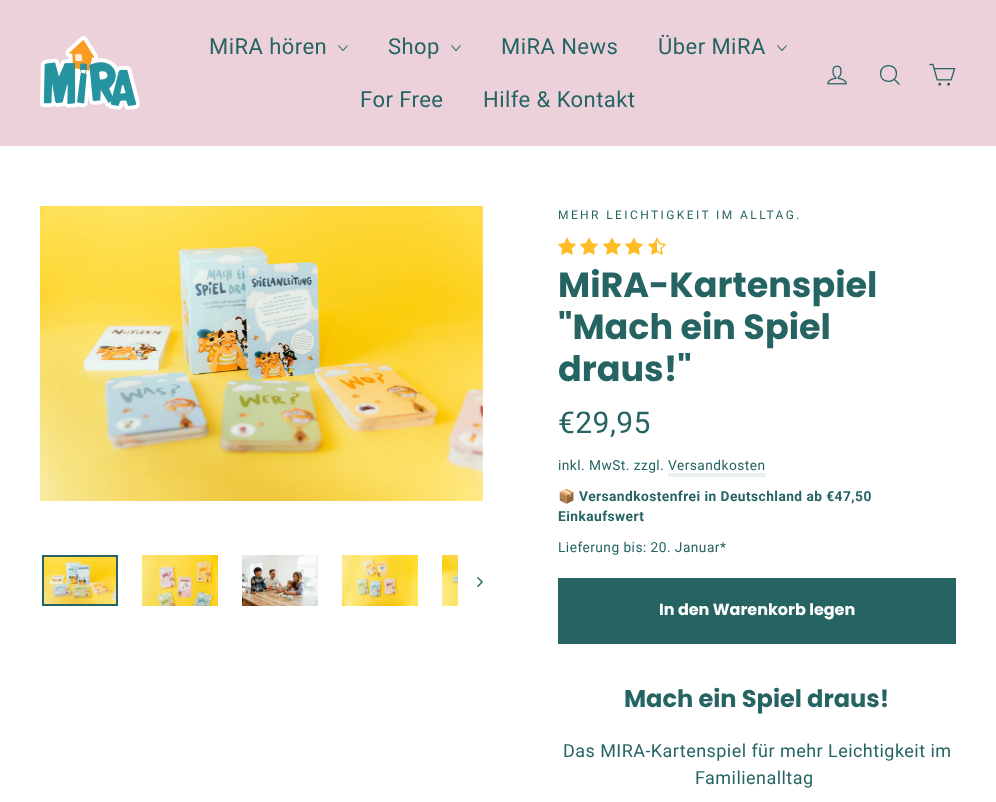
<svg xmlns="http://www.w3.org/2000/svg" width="996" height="802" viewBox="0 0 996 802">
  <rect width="100%" height="100%" fill="rgb(255,255,255)"/>
  <rect x="0" y="0" width="996" height="146" fill="rgb(237,209,218)"/>
  <image x="40" y="36" width="100" height="74" href="pic1.png"/>
  <text x="209" y="54" font-family="Roboto" font-size="22" letter-spacing="0.45" fill="rgb(38,100,100)">MiRA hören</text>
  <path d="M338.5 45.5L343 50.5L347.5 45.5" fill="none" stroke="rgb(38,100,100)" stroke-width="1.1"/>
  <text x="388" y="54" font-family="Roboto" font-size="22" letter-spacing="0.45" fill="rgb(38,100,100)">Shop</text>
  <path d="M451.5 45.5L456 50.5L460.5 45.5" fill="none" stroke="rgb(38,100,100)" stroke-width="1.1"/>
  <g font-family="Roboto" font-size="22" letter-spacing="0.45" fill="rgb(38,100,100)">
    <text x="501" y="54">MiRA News</text>
    <text x="658" y="54">Über MiRA</text>
  </g>
  <path d="M777.5 45.5L782 50.5L786.5 45.5" fill="none" stroke="rgb(38,100,100)" stroke-width="1.1"/>
  <g font-family="Roboto" font-size="22" letter-spacing="0.45" fill="rgb(38,100,100)">
    <text x="360" y="107">For Free</text>
    <text x="483" y="107">Hilfe &amp; Kontakt</text>
  </g>
  <image x="827" y="65" width="20" height="20" href="pic2.png"/>
  <path d="M896.5 73.5C896.5 84 880.5 84 880.5 73.5C880.5 63 896.5 63 896.5 73.5ZM899.5 84.5L894.5 79.5" fill="none" stroke="rgb(38,100,100)" stroke-width="1.3"/>
  <image x="929" y="63" width="27" height="23" href="pic3.png"/>
  <image x="40" y="206" width="443" height="295" href="pic4.png"/>
  <image x="44" y="557" width="72" height="47" href="pic5.png"/>
  <rect x="43" y="556" width="74" height="49" fill="none" stroke="rgb(38,100,100)" stroke-width="2"/>
  <image x="142" y="555" width="76" height="51" href="pic6.png"/>
  <image x="242" y="555" width="76" height="51" href="pic7.png"/>
  <image x="342" y="555" width="76" height="51" href="pic8.png"/>
  <image x="442" y="555" width="16" height="51" href="pic9.png"/>
  <image x="477" y="577" width="6" height="10" href="pic10.png"/>
  <text x="558" y="219" font-family="Roboto" font-size="12" letter-spacing="2.4" fill="rgb(38,100,100)">MEHR LEICHTIGKEIT IM ALLTAG.</text>
  <image x="558" y="237" width="18" height="18" href="pic11.png"/>
  <image x="580" y="237" width="18" height="18" href="pic11.png"/>
  <image x="603" y="237" width="18" height="18" href="pic11.png"/>
  <image x="625" y="237" width="18" height="18" href="pic11.png"/>
  <image x="648" y="237" width="18" height="18" href="pic12.png"/>
  <g font-family="Poppins" font-size="35" font-weight="bold" fill="rgb(38,100,100)">
    <text>
      <tspan x="558" y="297">MiRA-Kartenspiel</tspan>
      <tspan x="558" y="339">"Mach ein Spiel</tspan>
      <tspan x="558" y="381">draus!"</tspan>
    </text>
  </g>
  <text x="558" y="433" font-family="Roboto" font-size="30" letter-spacing="0.45" fill="rgb(38,100,100)">€29,95</text>
  <text x="558" y="470" font-family="Roboto" font-size="13.75" letter-spacing="0.45" fill="rgb(38,100,100)">inkl. MwSt. zzgl. Versandkosten</text>
  <rect x="668" y="473" width="98" height="4" fill="rgb(233,240,240)"/>
  <text x="558" y="501" font-family="Noto Color Emoji" font-size="13.75" font-weight="bold" letter-spacing="0.45" fill="rgb(38,100,100)">📦</text>
  <g font-family="Roboto" font-size="13.75" font-weight="bold" letter-spacing="0.45" fill="rgb(38,100,100)">
    <text x="579" y="501">Versandkostenfrei in Deutschland ab €47,50</text>
    <text x="558" y="521">Einkaufswert</text>
  </g>
  <text x="558" y="552" font-family="Roboto" font-size="13.75" letter-spacing="0.45" fill="rgb(38,100,100)">Lieferung bis: 20. Januar*</text>
  <rect x="558" y="578" width="398" height="66" fill="rgb(38,100,100)"/>
  <text x="659" y="615" font-family="Poppins" font-size="16" font-weight="bold" fill="rgb(255,255,255)">In den Warenkorb legen</text>
  <text x="624" y="707" font-family="Poppins" font-size="24.1" font-weight="bold" fill="rgb(38,100,100)">Mach ein Spiel draus!</text>
  <g font-family="Roboto" font-size="18" letter-spacing="0.45" fill="rgb(38,100,100)">
    <text x="563" y="757">Das MIRA-Kartenspiel für mehr Leichtigkeit im</text>
    <text x="695" y="784">Familienalltag</text>
  </g>
</svg>
